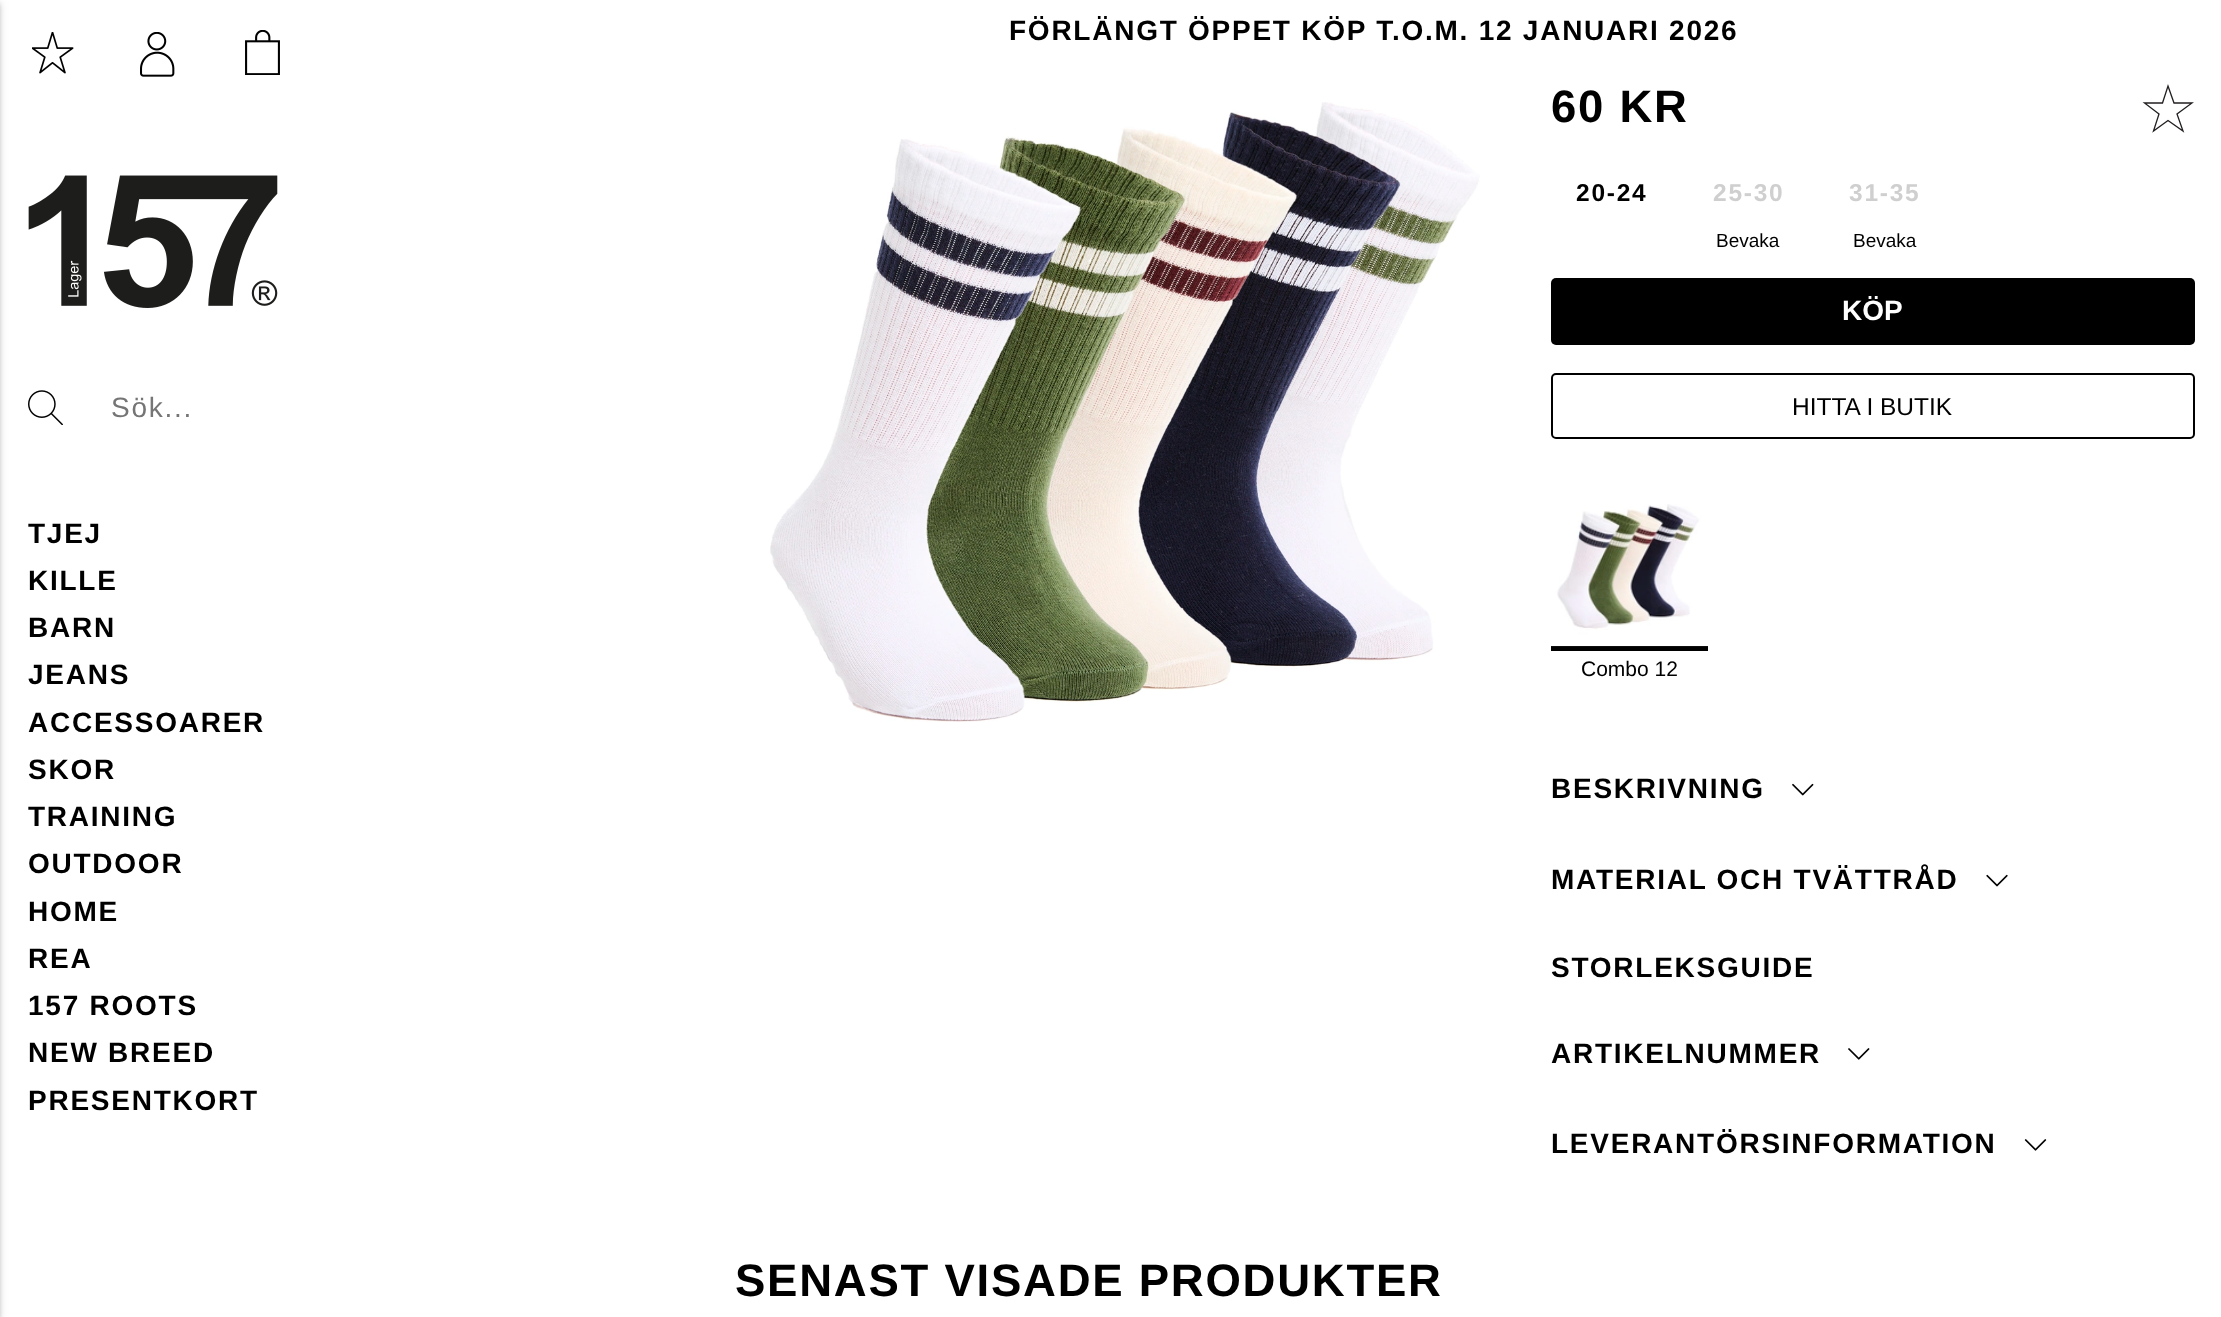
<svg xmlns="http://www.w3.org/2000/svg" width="2221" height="1317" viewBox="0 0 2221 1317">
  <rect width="100%" height="100%" fill="rgb(255,255,255)"/>
  <rect x="-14" y="2" width="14" height="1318" fill="rgba(0,0,0,0.12)" filter="blur(4.5px)"/>
  <rect x="-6" y="4" width="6" height="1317" fill="rgba(0,0,0,0.14)" filter="blur(2px)"/>
  <image x="140" y="32" width="35" height="45" href="pic1.png"/>
  <image x="245" y="30" width="35" height="45" href="pic2.png"/>
  <image x="32" y="32" width="42" height="42" href="pic3.png"/>
  <text x="1009" y="40" font-family="Liberation Sans" font-size="28" font-weight="bold" letter-spacing="1.75" fill="rgb(0,0,0)">FÖRLÄNGT ÖPPET KÖP T.O.M. 12 JANUARI 2026</text>
  <image x="28" y="175" width="250" height="133" href="pic4.png"/>
  <image x="28" y="390" width="35" height="35" href="pic5.png"/>
  <text x="111" y="417" font-family="Liberation Sans" font-size="28" letter-spacing="1.75" fill="rgb(117,117,117)">Sök...</text>
  <g font-family="Liberation Sans" font-size="28" font-weight="bold" letter-spacing="1.75" fill="rgb(0,0,0)">
    <text>
      <tspan x="28" y="543">TJEJ</tspan>
      <tspan x="28" y="590">KILLE</tspan>
      <tspan x="28" y="637">BARN</tspan>
      <tspan x="28" y="684">JEANS</tspan>
      <tspan x="28" y="732">ACCESSOARER</tspan>
      <tspan x="28" y="779">SKOR</tspan>
      <tspan x="28" y="826">TRAINING</tspan>
      <tspan x="28" y="873">OUTDOOR</tspan>
      <tspan x="28" y="921">HOME</tspan>
      <tspan x="28" y="968">REA</tspan>
      <tspan x="28" y="1015">157 ROOTS</tspan>
      <tspan x="28" y="1062">NEW BREED</tspan>
      <tspan x="28" y="1110">PRESENTKORT</tspan>
    </text>
  </g>
  <image x="770" y="102" width="710" height="620" href="pic6.png"/>
  <text x="1551" y="122" font-family="Liberation Sans" font-size="45.5" font-weight="bold" letter-spacing="1.75" fill="rgb(0,0,0)">60 KR</text>
  <path d="M2168 86L2174 103H2192L2177 114L2183 131L2168 120.5L2153.5 131L2159 114L2144.5 103H2162.5Z" fill="none" stroke="rgb(35,31,32)" stroke-width="1.3"/>
  <text x="1576" y="201" font-family="Liberation Sans" font-size="24.5" font-weight="bold" letter-spacing="1.75" fill="rgb(0,0,0)">20-24</text>
  <text x="1713" y="201" font-family="Liberation Sans" font-size="24.5" font-weight="bold" letter-spacing="1.75" fill="rgb(207,207,207)">25-30</text>
  <text x="1716" y="247" font-family="Liberation Sans" font-size="19" fill="rgb(0,0,0)">Bevaka</text>
  <text x="1849" y="201" font-family="Liberation Sans" font-size="24.5" font-weight="bold" letter-spacing="1.75" fill="rgb(207,207,207)">31-35</text>
  <text x="1853" y="247" font-family="Liberation Sans" font-size="19" fill="rgb(0,0,0)">Bevaka</text>
  <rect x="1551" y="278" width="644" height="67" rx="5" fill="rgb(0,0,0)"/>
  <text x="1842" y="320" font-family="Liberation Sans" font-size="28" font-weight="bold" fill="rgb(255,255,255)">KÖP</text>
  <rect x="1552" y="374" width="642" height="64" rx="4" fill="none" stroke="rgb(0,0,0)" stroke-width="2"/>
  <text x="1792" y="415" font-family="Liberation Sans" font-size="24.5" fill="rgb(0,0,0)">HITTA I BUTIK</text>
  <rect x="1551" y="646" width="157" height="5" fill="rgb(0,0,0)"/>
  <image x="1551" y="504" width="157" height="143" href="pic7.png"/>
  <text x="1581" y="676" font-family="Liberation Sans" font-size="21" fill="rgb(0,0,0)">Combo 12</text>
  <text x="1551" y="798" font-family="Liberation Sans" font-size="28" font-weight="bold" letter-spacing="1.75" fill="rgb(0,0,0)">BESKRIVNING</text>
  <image x="1792" y="783" width="22" height="13" href="pic8.png"/>
  <text x="1551" y="889" font-family="Liberation Sans" font-size="28" font-weight="bold" letter-spacing="1.75" fill="rgb(0,0,0)">MATERIAL OCH TVÄTTRÅD</text>
  <image x="1986" y="874" width="22" height="13" href="pic9.png"/>
  <g font-family="Liberation Sans" font-size="28" font-weight="bold" letter-spacing="1.75" fill="rgb(0,0,0)">
    <text x="1551" y="977">STORLEKSGUIDE</text>
    <text x="1551" y="1063">ARTIKELNUMMER</text>
  </g>
  <image x="1848" y="1048" width="22" height="12" href="pic10.png"/>
  <text x="1551" y="1153" font-family="Liberation Sans" font-size="28" font-weight="bold" letter-spacing="1.75" fill="rgb(0,0,0)">LEVERANTÖRSINFORMATION</text>
  <image x="2024" y="1139" width="23" height="12" href="pic11.png"/>
  <text x="735" y="1296" font-family="Liberation Sans" font-size="45.5" font-weight="bold" letter-spacing="1.75" fill="rgb(0,0,0)">SENAST VISADE PRODUKTER</text>
</svg>
